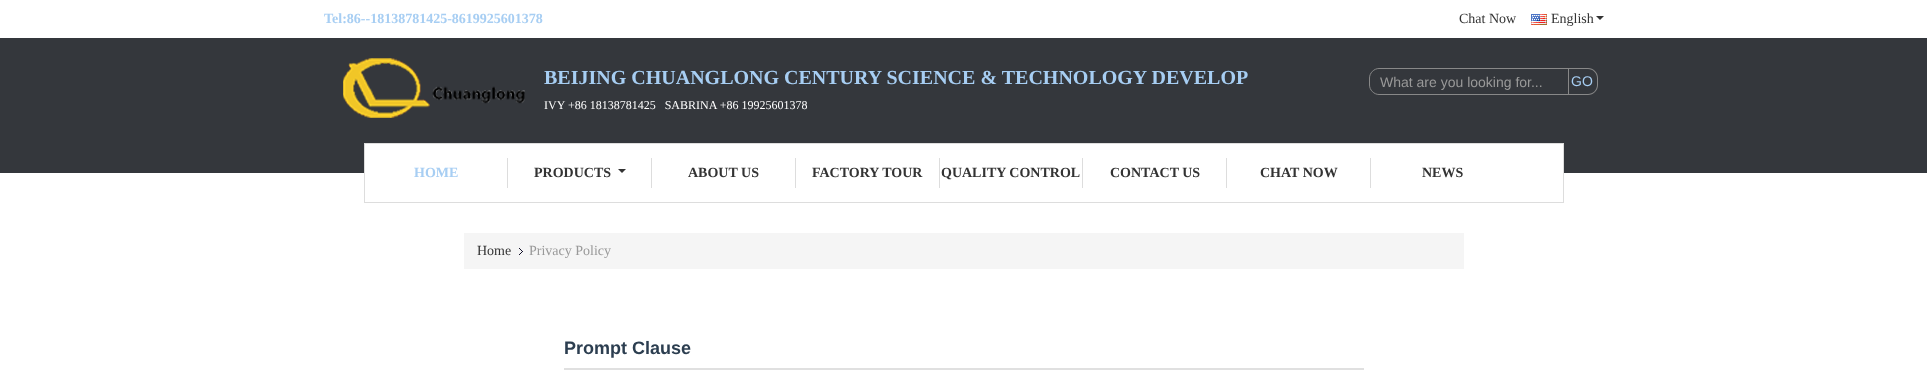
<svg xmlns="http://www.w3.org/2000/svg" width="1927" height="371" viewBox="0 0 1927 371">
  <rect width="100%" height="100%" fill="rgb(255,255,255)"/>
  <text x="324" y="23" font-family="Liberation Serif" font-size="14" font-weight="bold" fill="rgb(167,206,243)">Tel:86--18138781425-8619925601378</text>
  <text x="1459" y="23" font-family="Liberation Serif" font-size="14" fill="rgb(51,51,51)">Chat Now</text>
  <image x="1531" y="14" width="16" height="11" href="pic1.png"/>
  <text x="1551" y="23" font-family="Liberation Serif" font-size="14" fill="rgb(51,51,51)">English</text>
  <path d="M1596 16H1604L1600 20Z" fill="rgb(51,51,51)"/>
  <rect x="0" y="38" width="1927" height="135" fill="rgb(52,55,60)"/>
  <image x="343" y="58" width="182" height="60" href="pic2.png"/>
  <text x="544" y="84" font-family="Liberation Serif" font-size="20" font-weight="bold" fill="rgb(167,206,243)">BEIJING CHUANGLONG CENTURY SCIENCE &amp; TECHNOLOGY DEVELOP</text>
  <text x="544" y="109" font-family="Liberation Serif" font-size="12" fill="rgb(255,255,255)" xml:space="preserve">IVY +86 18138781425   SABRINA +86 19925601378</text>
  <path d="M1379 68.5H1568.5V94.5H1379C1374 94.5 1369.5 90 1369.5 85V78C1369.5 73 1374 68.5 1379 68.5Z" fill="none" stroke="rgb(136,136,136)"/>
  <text x="1380" y="87" font-family="Liberation Sans" font-size="14" fill="rgb(153,153,153)">What are you looking for...</text>
  <path d="M1566 68H1588C1593.5 68 1598 72.5 1598 78V85C1598 90.5 1593.5 95 1588 95H1566ZM1566 69H1588C1593 69 1597 73 1597 78V85C1597 90 1593 94 1588 94H1566Z" fill="rgb(136,136,136)" fill-rule="evenodd"/>
  <text x="1571" y="86" font-family="Liberation Sans" font-size="14" fill="rgb(167,206,243)">GO</text>
  <rect x="365" y="144" width="1198" height="29" fill="rgb(255,255,255)"/>
  <rect x="364.5" y="143.5" width="1199" height="59" fill="none" stroke="rgb(221,221,221)"/>
  <rect x="507" y="158" width="1" height="30" fill="rgb(221,221,221)"/>
  <text x="414" y="177" font-family="Liberation Serif" font-size="14" font-weight="bold" fill="rgb(167,206,243)">HOME</text>
  <rect x="651" y="158" width="1" height="30" fill="rgb(221,221,221)"/>
  <text x="534" y="177" font-family="Liberation Serif" font-size="14" font-weight="bold" fill="rgb(51,51,51)">PRODUCTS</text>
  <path d="M618 169H626L622 173Z" fill="rgb(51,51,51)"/>
  <rect x="795" y="158" width="1" height="30" fill="rgb(221,221,221)"/>
  <text x="688" y="177" font-family="Liberation Serif" font-size="14" font-weight="bold" fill="rgb(51,51,51)">ABOUT US</text>
  <rect x="939" y="158" width="1" height="30" fill="rgb(221,221,221)"/>
  <text x="812" y="177" font-family="Liberation Serif" font-size="14" font-weight="bold" fill="rgb(51,51,51)">FACTORY TOUR</text>
  <rect x="1082" y="158" width="1" height="30" fill="rgb(221,221,221)"/>
  <text x="941" y="177" font-family="Liberation Serif" font-size="14" font-weight="bold" fill="rgb(51,51,51)">QUALITY CONTROL</text>
  <rect x="1226" y="158" width="1" height="30" fill="rgb(221,221,221)"/>
  <text x="1110" y="177" font-family="Liberation Serif" font-size="14" font-weight="bold" fill="rgb(51,51,51)">CONTACT US</text>
  <rect x="1370" y="158" width="1" height="30" fill="rgb(221,221,221)"/>
  <g font-family="Liberation Serif" font-size="14" font-weight="bold" fill="rgb(51,51,51)">
    <text x="1260" y="177">CHAT NOW</text>
    <text x="1422" y="177">NEWS</text>
  </g>
  <rect x="464" y="233" width="1000" height="36" fill="rgb(245,245,245)"/>
  <text x="477" y="255" font-family="Liberation Serif" font-size="14" fill="rgb(51,51,51)">Home</text>
  <image x="519" y="248" width="4" height="7" href="pic3.png"/>
  <text x="529" y="255" font-family="Liberation Serif" font-size="14" fill="rgb(153,153,153)">Privacy Policy</text>
  <rect x="564" y="368" width="800" height="2" fill="rgb(224,224,224)"/>
  <text x="564" y="354" font-family="Liberation Sans" font-size="18" font-weight="bold" fill="rgb(44,62,80)">Prompt Clause</text>
</svg>
